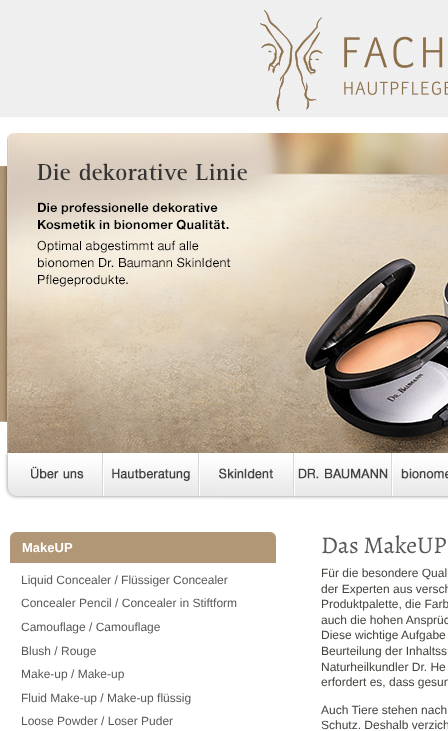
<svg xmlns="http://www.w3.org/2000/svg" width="448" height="731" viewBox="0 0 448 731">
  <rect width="100%" height="100%" fill="rgb(255,255,255)"/>
  <image x="0" y="0" width="448" height="165" href="pic1.png"/>
  <image x="256" y="8" width="192" height="104" href="pic2.png"/>
  <image x="0" y="165" width="7" height="263" href="pic3.png"/>
  <image x="7" y="133" width="441" height="320" href="pic4.png"/>
  <image x="4" y="453" width="444" height="47" href="pic5.png"/>
  <rect x="10" y="539" width="266" height="24" fill="rgb(177,151,118)"/>
  <image x="10" y="532" width="266" height="7" href="pic6.png"/>
  <text x="22" y="552" font-family="Liberation Sans" font-size="13" font-weight="bold" fill="rgb(255,255,255)">MakeUP</text>
  <g font-family="Liberation Sans" font-size="12" fill="rgb(88,88,88)">
    <text>
      <tspan x="21" y="584">Liquid Concealer / Flüssiger Concealer</tspan>
      <tspan x="21" y="607">Concealer Pencil / Concealer in Stiftform</tspan>
    </text>
    <text x="21" y="631">Camouflage / Camouflage</text>
    <text>
      <tspan x="21" y="655">Blush / Rouge</tspan>
      <tspan x="21" y="678">Make-up / Make-up</tspan>
    </text>
    <text>
      <tspan x="21" y="702">Fluid Make-up / Make-up flüssig</tspan>
      <tspan x="21" y="725">Loose Powder / Loser Puder</tspan>
    </text>
  </g>
  <text x="321" y="553" font-family="Alegreya" font-size="24" fill="rgb(88,88,88)">Das MakeUP</text>
  <g font-family="Liberation Sans" font-size="12" fill="rgb(67,66,62)">
    <text>
      <tspan x="321" y="577">Für die besondere Qual</tspan>
      <tspan x="321" y="593">der Experten aus versch</tspan>
      <tspan x="321" y="608">Produktpalette, die Farb</tspan>
      <tspan x="321" y="624">auch die hohen Ansprüc</tspan>
      <tspan x="321" y="639">Diese wichtige Aufgabe</tspan>
      <tspan x="321" y="655">Beurteilung der Inhaltss</tspan>
      <tspan x="321" y="671">Naturheilkundler Dr. He</tspan>
      <tspan x="321" y="686">erfordert es, dass gesun</tspan>
    </text>
    <text>
      <tspan x="321" y="714">Auch Tiere stehen nach</tspan>
      <tspan x="321" y="729">Schutz. Deshalb verzich</tspan>
    </text>
  </g>
</svg>
